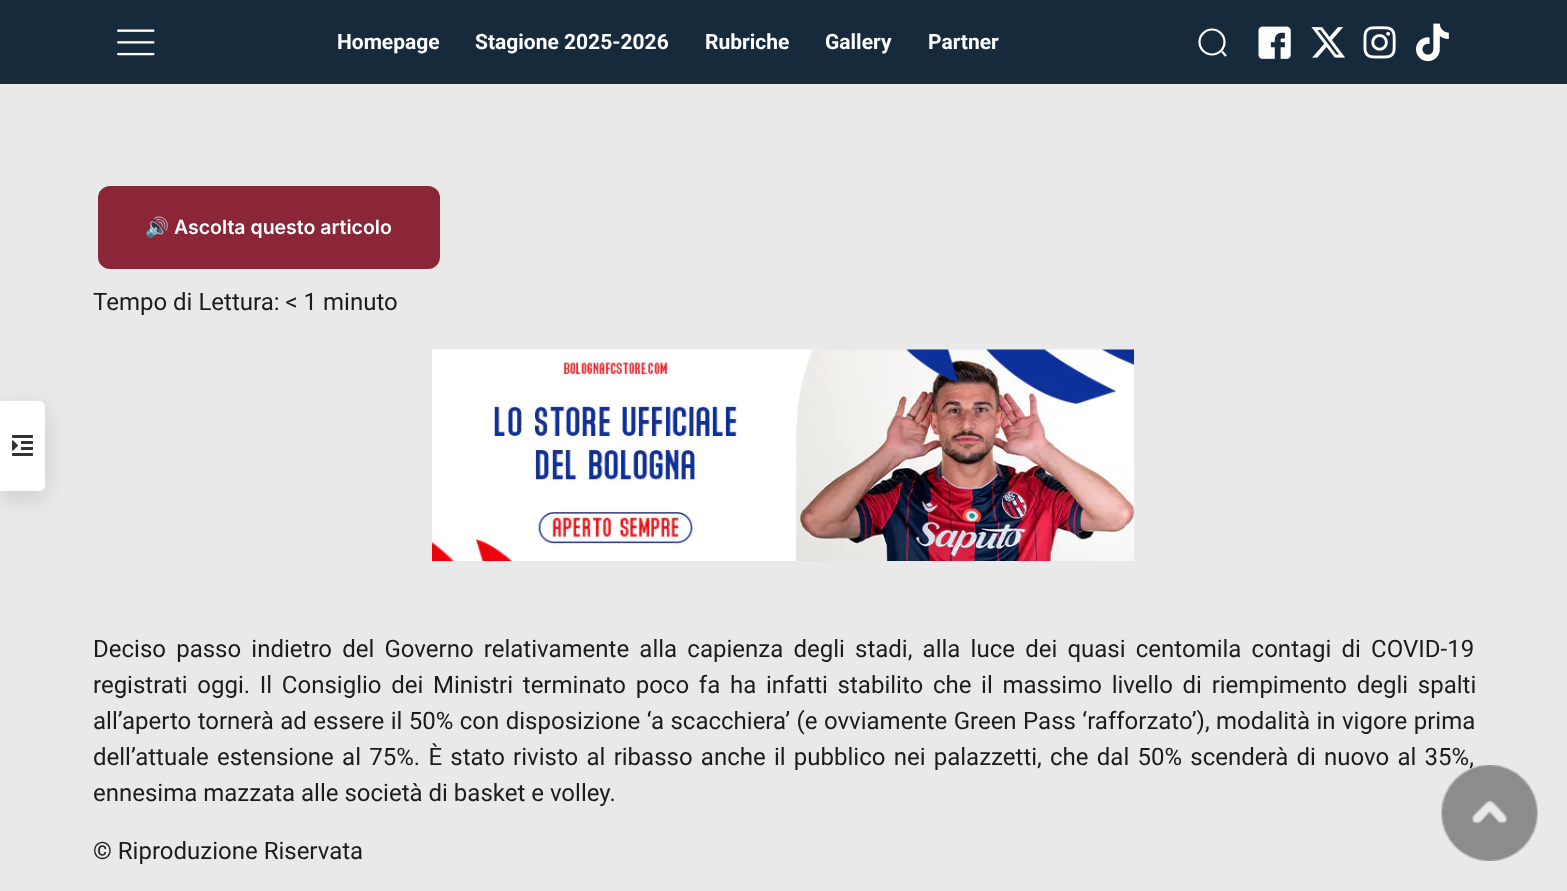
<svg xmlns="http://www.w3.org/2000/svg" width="1567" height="891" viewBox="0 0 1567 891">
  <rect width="100%" height="100%" fill="rgb(233,233,233)"/>
  <rect x="0" y="408" width="45" height="90" rx="6" fill="rgba(8,8,14,0.13)" filter="blur(11px)"/>
  <path d="M0 401H39C42.5 401 45 403.5 45 407V485C45 488.5 42.5 491 39 491H0Z" fill="rgb(255,255,255)"/>
  <image x="12" y="435" width="21" height="21" href="pic1.png"/>
  <rect x="0" y="0" width="1567" height="84" fill="rgb(23,42,60)"/>
  <image x="117" y="29" width="38" height="27" href="pic2.png"/>
  <g font-family="Roboto" font-size="21" font-weight="bold" fill="rgb(255,255,255)">
    <text x="337" y="49">Homepage</text>
    <text x="475" y="49">Stagione 2025-2026</text>
    <text x="705" y="49">Rubriche</text>
    <text x="825" y="49">Gallery</text>
    <text x="928" y="49">Partner</text>
  </g>
  <circle cx="1212" cy="42" r="12.5" fill="none" stroke="rgb(255,255,255)" stroke-width="2.2"/>
  <path d="M1222 51.5L1226 56" fill="none" stroke="rgb(255,255,255)" stroke-width="2.2"/>
  <image x="1258" y="26" width="33" height="33" href="pic3.png"/>
  <image x="1311" y="27" width="34" height="31" href="pic4.png"/>
  <image x="1363" y="26" width="33" height="33" href="pic5.png"/>
  <image x="1416" y="23" width="33" height="39" href="pic6.png"/>
  <rect x="98" y="186" width="342" height="83" rx="12" fill="rgb(139,38,56)"/>
  <text x="145" y="234" font-family="Noto Color Emoji" font-size="19.5" font-weight="bold" fill="rgb(255,255,255)">🔊</text>
  <text x="174" y="234" font-family="Inter" font-size="19.5" font-weight="600" fill="rgb(255,255,255)">Ascolta questo articolo</text>
  <text x="93" y="310" font-family="Roboto" font-size="24" fill="rgb(28,28,28)">Tempo di Lettura: &lt; 1 minuto</text>
  <image x="432" y="349" width="702" height="212" href="pic7.png"/>
  <g font-family="Roboto" font-size="24" fill="rgb(28,28,28)">
    <text>
      <tspan x="93" y="657" word-spacing="4.25">Deciso passo indietro del Governo relativamente alla capienza degli stadi, alla luce dei quasi centomila contagi di COVID-19</tspan>
      <tspan x="93" y="693" word-spacing="3.75">registrati oggi. Il Consiglio dei Ministri terminato poco fa ha infatti stabilito che il massimo livello di riempimento degli spalti</tspan>
      <tspan x="93" y="729" word-spacing="0.5">all’aperto tornerà ad essere il 50% con disposizione ‘a scacchiera’ (e ovviamente Green Pass ‘rafforzato’), modalità in vigore prima</tspan>
      <tspan x="93" y="765" word-spacing="2.3">dell’attuale estensione al 75%. È stato rivisto al ribasso anche il pubblico nei palazzetti, che dal 50% scenderà di nuovo al 35%,</tspan>
      <tspan x="93" y="801">ennesima mazzata alle società di basket e volley.</tspan>
    </text>
    <text x="93" y="859">© Riproduzione Riservata</text>
  </g>
  <image x="1441" y="765" width="97" height="96" href="pic8.png"/>
</svg>
